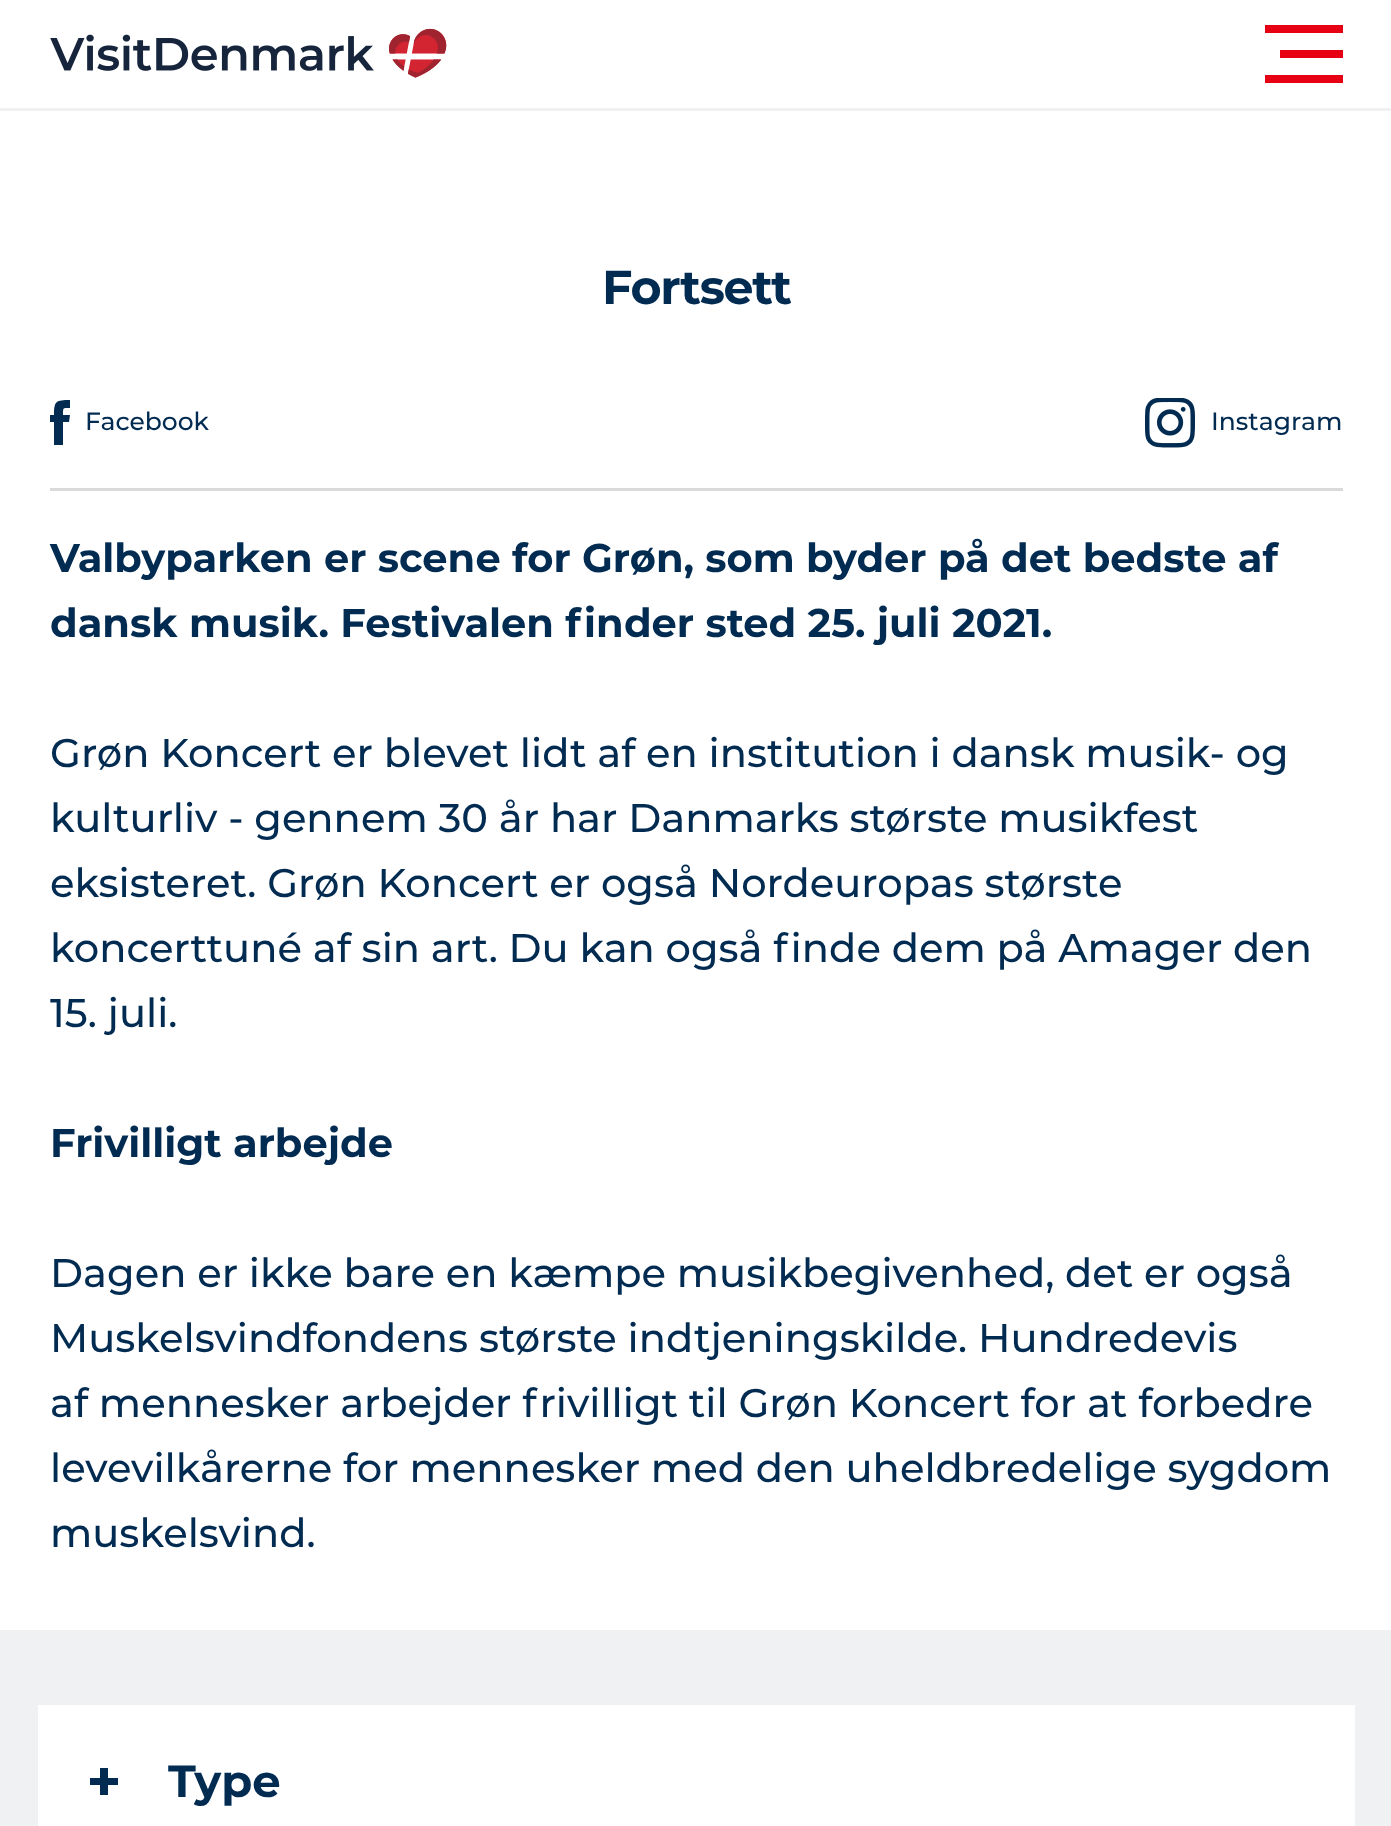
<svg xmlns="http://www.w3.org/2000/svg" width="1391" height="1826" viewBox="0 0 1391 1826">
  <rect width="100%" height="100%" fill="rgb(255,255,255)"/>
  <rect x="0" y="108" width="1391" height="3" fill="rgb(240,241,243)"/>
  <image x="50" y="28" width="397" height="50" href="pic1.png"/>
  <rect x="1265" y="25" width="78" height="8" fill="rgb(231,0,19)"/>
  <rect x="1280" y="50" width="63" height="8" fill="rgb(231,0,19)"/>
  <rect x="1265" y="75" width="78" height="8" fill="rgb(231,0,19)"/>
  <rect x="50" y="488" width="1293" height="3" fill="rgb(216,218,220)"/>
  <text x="602" y="304" font-family="Montserrat" font-size="47.5" font-weight="bold" letter-spacing="-1.25" fill="rgb(2,43,82)">Fortsett</text>
  <path d="M70 415H63C63 407 63 408 70 408V400C56 400 54 401 54 415H50V422H54V445H63V422H69Z" fill="rgb(2,43,82)"/>
  <text x="85" y="430" font-family="Montserrat" font-size="25" font-weight="500" fill="rgb(2,43,82)">Facebook</text>
  <image x="1145" y="398" width="50" height="50" href="pic2.png"/>
  <text x="1211" y="430" font-family="Montserrat" font-size="25" font-weight="500" fill="rgb(2,43,82)">Instagram</text>
  <g font-family="Montserrat" font-size="40" font-weight="bold" fill="rgb(2,43,82)">
    <text>
      <tspan x="50" y="572">Valbyparken er scene for Grøn, som byder på det bedste af</tspan>
      <tspan x="50" y="637">dansk musik. Festivalen finder sted 25. juli 2021.</tspan>
    </text>
  </g>
  <g font-family="Montserrat" font-size="40" font-weight="500" fill="rgb(2,43,82)">
    <text>
      <tspan x="50" y="767">Grøn Koncert er blevet lidt af en institution i dansk musik- og</tspan>
      <tspan x="50" y="832">kulturliv - gennem 30 år har Danmarks største musikfest</tspan>
      <tspan x="50" y="897">eksisteret. Grøn Koncert er også Nordeuropas største</tspan>
      <tspan x="50" y="962">koncerttuné af sin art. Du kan også finde dem på Amager den</tspan>
      <tspan x="50" y="1027">15. juli.</tspan>
    </text>
  </g>
  <text x="50" y="1157" font-family="Montserrat" font-size="40" font-weight="bold" fill="rgb(2,43,82)">Frivilligt arbejde</text>
  <g font-family="Montserrat" font-size="40" font-weight="500" fill="rgb(2,43,82)">
    <text>
      <tspan x="50" y="1287">Dagen er ikke bare en kæmpe musikbegivenhed, det er også</tspan>
      <tspan x="50" y="1352">Muskelsvindfondens største indtjeningskilde. Hundredevis</tspan>
      <tspan x="50" y="1417">af mennesker arbejder frivilligt til Grøn Koncert for at forbedre</tspan>
      <tspan x="50" y="1482">levevilkårerne for mennesker med den uheldbredelige sygdom</tspan>
      <tspan x="50" y="1547">muskelsvind.</tspan>
    </text>
  </g>
  <rect x="0" y="1630" width="1391" height="196" fill="rgb(239,241,243)"/>
  <rect x="38" y="1705" width="1317" height="121" fill="rgb(255,255,255)"/>
  <rect x="90" y="1778" width="28" height="7" fill="rgb(2,43,82)"/>
  <rect x="100" y="1768" width="8" height="27" fill="rgb(2,43,82)"/>
  <text x="168" y="1797" font-family="Montserrat" font-size="45" font-weight="bold" fill="rgb(2,43,82)">Type</text>
</svg>
